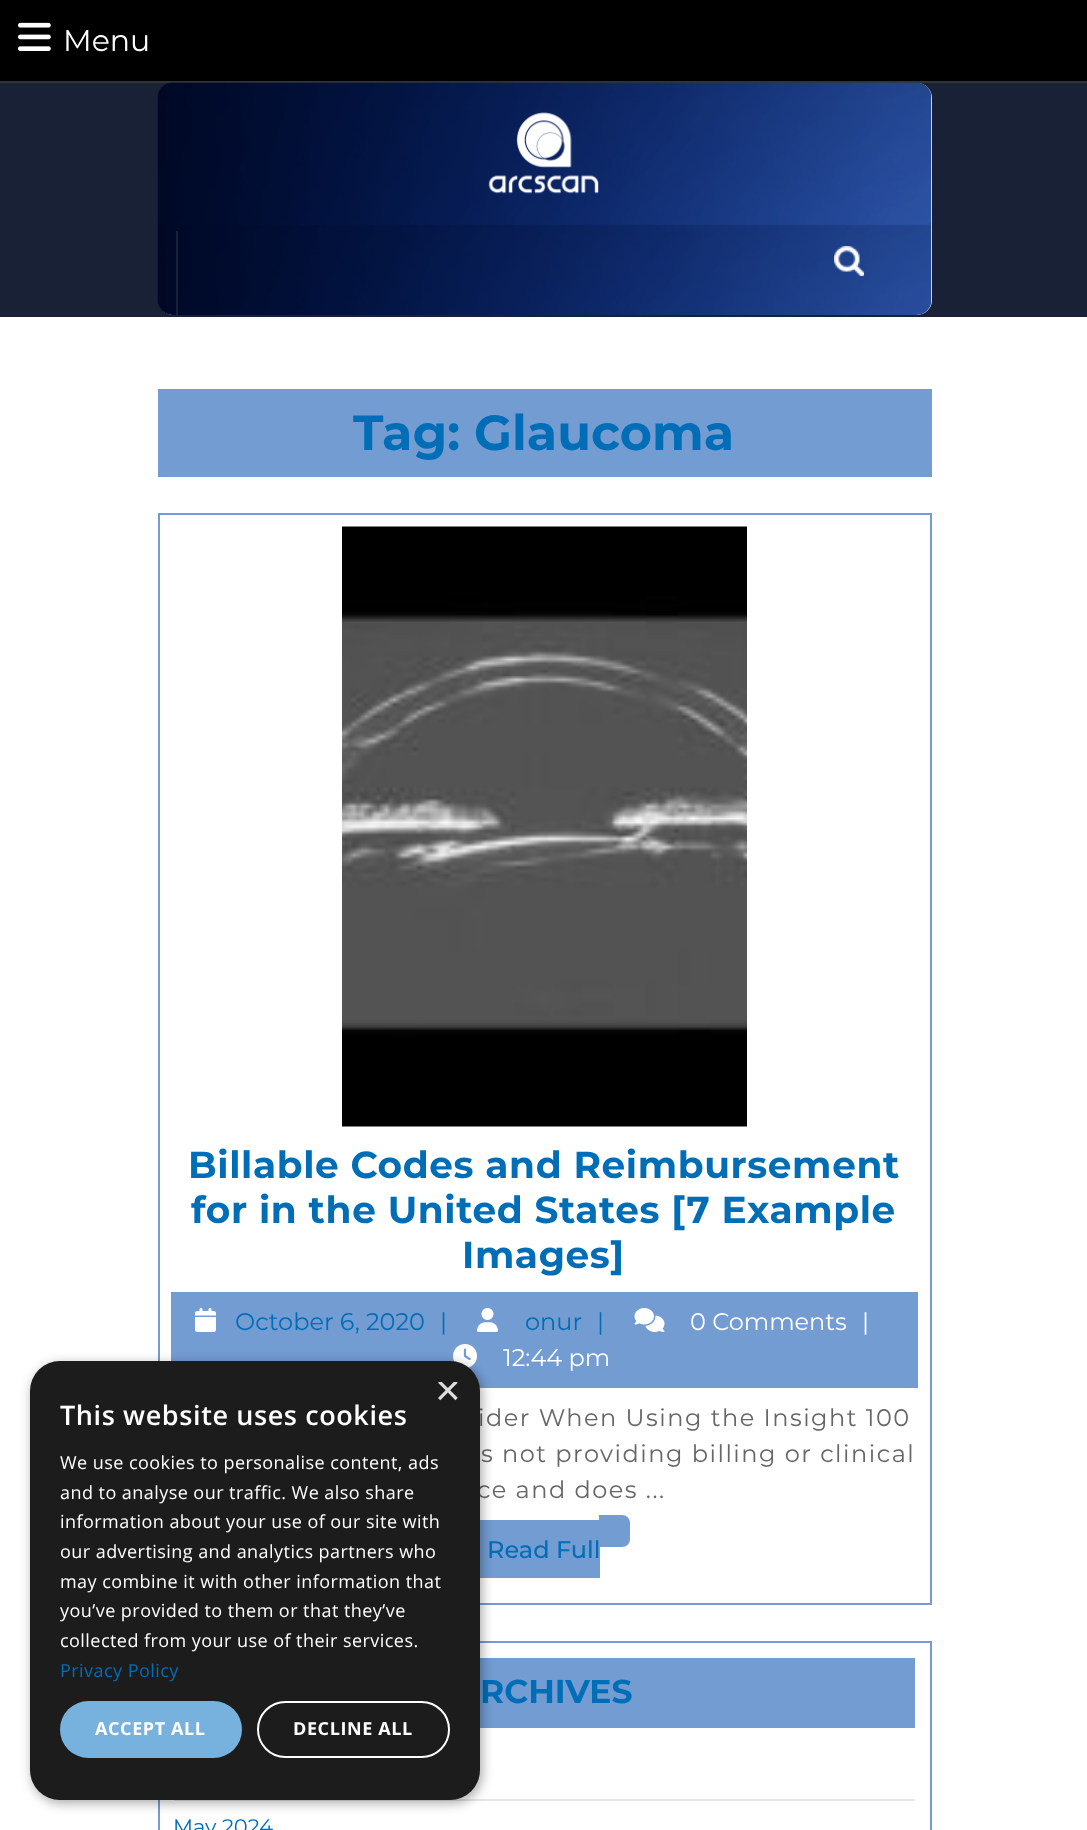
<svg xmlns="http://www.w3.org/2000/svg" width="1087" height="1830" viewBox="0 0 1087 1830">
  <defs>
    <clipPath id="clip1"><rect x="435" y="1382" width="23" height="22"/></clipPath>
  </defs>
  <rect width="100%" height="100%" fill="rgb(255,255,255)"/>
  <rect x="0" y="0" width="1087" height="81" fill="rgb(0,0,0)"/>
  <rect x="0" y="81" width="1087" height="2" fill="rgb(51,51,51)"/>
  <image x="18" y="22" width="33" height="29" href="pic1.png"/>
  <text x="63" y="51" font-family="Montserrat" font-size="30" fill="rgb(255,255,255)">Menu</text>
  <rect x="0" y="83" width="1087" height="234" fill="rgb(25,33,54)"/>
  <rect x="158" y="83" width="774" height="232" rx="15" fill="rgb(255,255,255)"/>
  <image x="157" y="82" width="775" height="233" href="pic2.png"/>
  <image x="488" y="112" width="111" height="82" href="pic3.png"/>
  <rect x="176" y="231" width="2" height="84" fill="rgb(25,33,54)"/>
  <image x="834" y="246" width="30" height="30" href="pic4.png"/>
  <rect x="158" y="389" width="774" height="88" fill="rgb(115,156,210)"/>
  <text x="353" y="450" font-family="Montserrat" font-size="49.25" font-weight="bold" fill="rgb(0,109,183)">Tag: Glaucoma</text>
  <rect x="159" y="514" width="772" height="1090" fill="none" stroke="rgb(115,156,210)" stroke-width="2"/>
  <image x="342" y="526" width="405" height="601" href="pic5.png"/>
  <g font-family="Montserrat" font-size="37.5" font-weight="bold" letter-spacing="0.6" fill="rgb(0,109,183)">
    <text x="188" y="1178">Billable Codes and Reimbursement</text>
    <text x="191" y="1223">for in the United States [7 Example</text>
    <text x="462" y="1268">Images]</text>
  </g>
  <rect x="171" y="1292" width="747" height="96" fill="rgb(115,156,210)"/>
  <image x="195" y="1308" width="21" height="24" href="pic6.png"/>
  <g font-family="Montserrat" font-size="24" fill="rgb(0,109,183)">
    <text x="235" y="1330">October 6, 2020</text>
    <text x="440" y="1330">|</text>
  </g>
  <image x="477" y="1308" width="21" height="24" href="pic7.png"/>
  <g font-family="Montserrat" font-size="24" fill="rgb(0,109,183)">
    <text x="525" y="1330">onur</text>
    <text x="597" y="1330">|</text>
  </g>
  <image x="634" y="1308" width="31" height="24" href="pic8.png"/>
  <g font-family="Montserrat" font-size="24" fill="rgb(255,255,255)">
    <text x="690" y="1330">0 Comments</text>
    <text x="862" y="1330">|</text>
  </g>
  <image x="453" y="1344" width="24" height="24" href="pic9.png"/>
  <text x="503" y="1366" font-family="Montserrat" font-size="24" fill="rgb(255,255,255)">12:44 pm</text>
  <g font-family="Montserrat" font-size="24" letter-spacing="1.5" fill="rgb(102,102,102)">
    <text x="478" y="1426">ider When Using the Insight 100</text>
    <text x="481" y="1462">s not providing billing or clinical</text>
    <text x="477" y="1498">ce and does ...</text>
  </g>
  <rect x="480" y="1520" width="120" height="58" fill="rgb(115,156,210)"/>
  <text x="487" y="1558" font-family="Montserrat" font-size="24" font-weight="500" fill="rgb(0,109,183)">Read Full</text>
  <path d="M599 1515H622C626.5 1515 630 1518.5 630 1523V1539C630 1543.5 626.5 1547 622 1547H599Z" fill="rgb(115,156,210)"/>
  <rect x="159" y="1642" width="772" height="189" fill="none" stroke="rgb(115,156,210)" stroke-width="2"/>
  <rect x="480" y="1658" width="435" height="70" fill="rgb(115,156,210)"/>
  <text x="480" y="1703" font-family="Montserrat" font-size="33" font-weight="bold" fill="rgb(0,109,183)">RCHIVES</text>
  <rect x="174" y="1799" width="741" height="2" fill="rgb(230,230,230)"/>
  <text x="173" y="1834" font-family="Montserrat" font-size="21" fill="rgb(0,109,183)">May 2024</text>
  <rect x="32" y="1364" width="450" height="439" rx="30" fill="rgba(0,0,0,0.35)" filter="blur(6px)"/>
  <rect x="30" y="1361" width="450" height="439" rx="30" fill="rgb(28,28,28)"/>
  <g clip-path="url(#clip1)">
    <text x="435" y="1405" font-family="Liberation Sans" font-size="44" fill="rgb(221,221,221)">×</text>
  </g>
  <text x="60" y="1425" font-family="Open Sans" font-size="27" font-weight="600" letter-spacing="0.6" fill="rgb(255,255,255)">This website uses cookies</text>
  <g font-family="Open Sans" font-size="18" letter-spacing="0.45" fill="rgb(255,255,255)">
    <text>
      <tspan x="60" y="1469">We use cookies to personalise content, ads</tspan>
      <tspan x="60" y="1499">and to analyse our traffic. We also share</tspan>
      <tspan x="60" y="1528">information about your use of our site with</tspan>
      <tspan x="60" y="1558">our advertising and analytics partners who</tspan>
      <tspan x="60" y="1588">may combine it with other information that</tspan>
      <tspan x="60" y="1617">you’ve provided to them or that they’ve</tspan>
      <tspan x="60" y="1647">collected from your use of their services.</tspan>
    </text>
  </g>
  <text x="60" y="1677" font-family="Open Sans" font-size="18" letter-spacing="0.45" fill="rgb(0,109,183)">Privacy Policy</text>
  <rect x="60" y="1701" width="182" height="57" rx="28.5" fill="rgb(119,178,223)"/>
  <text x="95" y="1735" font-family="Open Sans" font-size="18" font-weight="bold" letter-spacing="0.6" fill="rgb(255,255,255)">ACCEPT ALL</text>
  <rect x="258" y="1702" width="191" height="55" rx="27.5" fill="none" stroke="rgb(255,255,255)" stroke-width="2"/>
  <text x="293" y="1735" font-family="Open Sans" font-size="18" font-weight="bold" letter-spacing="0.6" fill="rgb(255,255,255)">DECLINE ALL</text>
</svg>
